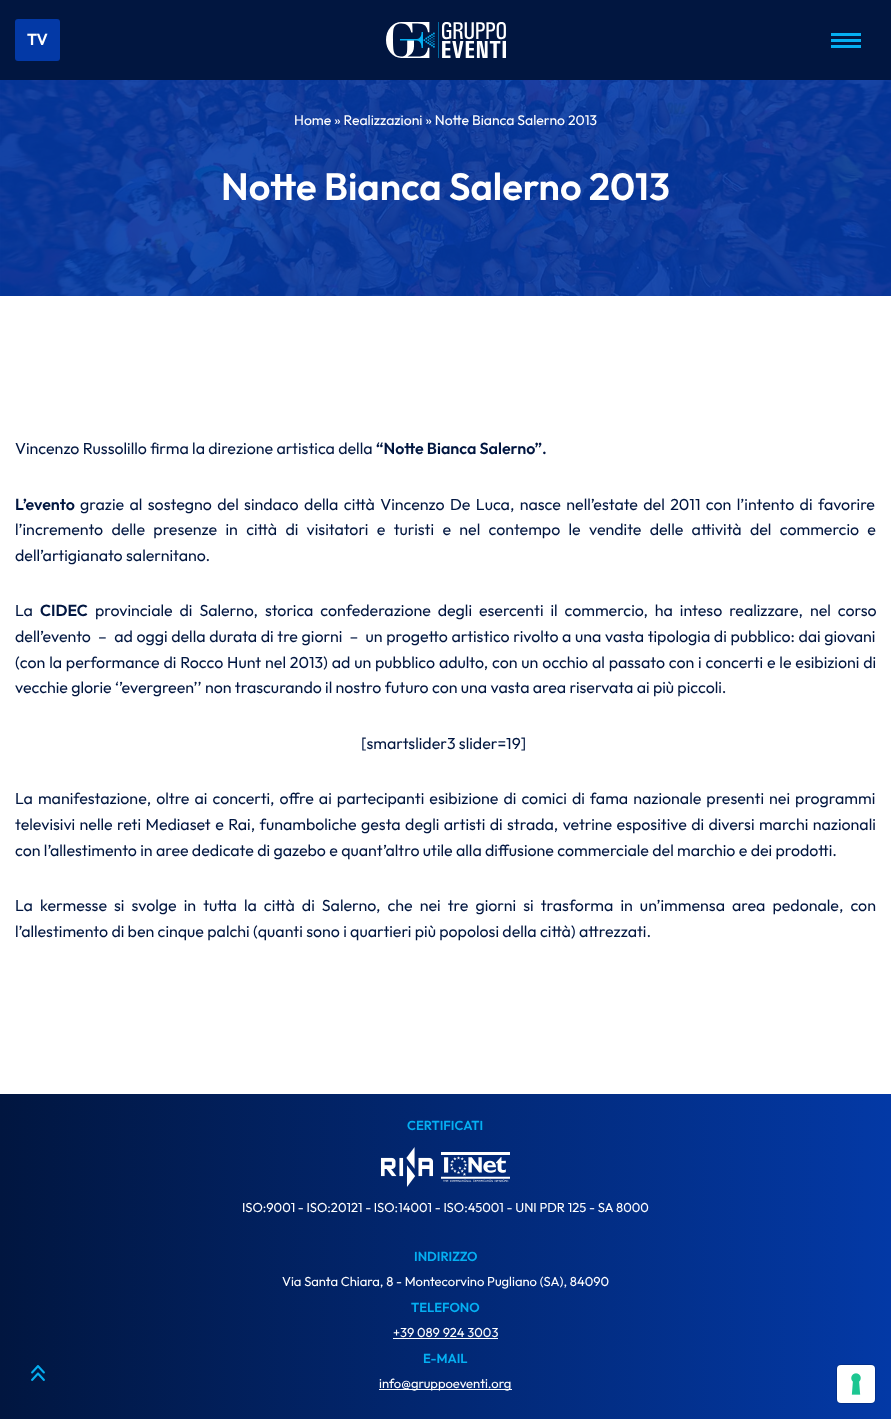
<svg xmlns="http://www.w3.org/2000/svg" width="891" height="1419" viewBox="0 0 891 1419">
  <defs>
    <linearGradient id="g1" gradientUnits="userSpaceOnUse" x1="0" y1="1322" x2="891" y2="1322"><stop offset="0" stop-color="rgb(1,22,64)"/><stop offset="1" stop-color="rgb(3,57,166)"/></linearGradient>
  </defs>
  <rect width="100%" height="100%" fill="rgb(255,255,255)"/>
  <rect x="0" y="0" width="891" height="80" fill="rgb(1,22,64)"/>
  <rect x="15" y="19" width="45" height="42" rx="3" fill="rgb(3,57,166)"/>
  <text x="27" y="45" font-family="Outfit" font-size="16" font-weight="600" fill="rgb(255,255,255)">TV</text>
  <image x="386" y="22" width="120" height="36" href="pic1.png"/>
  <rect x="831" y="33" width="30" height="3" fill="rgb(5,175,242)"/>
  <rect x="831" y="39" width="30" height="3" fill="rgb(5,175,242)"/>
  <rect x="831" y="45" width="30" height="3" fill="rgb(5,175,242)"/>
  <image x="0" y="80" width="891" height="216" href="pic2.png"/>
  <text x="294" y="125" font-family="Outfit" font-size="14" fill="rgb(255,255,255)">Home » Realizzazioni » Notte Bianca Salerno 2013</text>
  <text x="221" y="200" font-family="Outfit" font-size="38" font-weight="600" fill="rgb(255,255,255)">Notte Bianca Salerno 2013</text>
  <text x="15" y="454" font-family="Outfit" font-size="16" fill="rgb(1,22,64)">Vincenzo Russolillo firma la direzione artistica della</text>
  <g font-family="Outfit" font-size="16" font-weight="600" fill="rgb(1,22,64)">
    <text x="376" y="454">“Notte Bianca Salerno”.</text>
    <text x="15" y="510">L’evento</text>
  </g>
  <g font-family="Outfit" font-size="16" fill="rgb(1,22,64)">
    <text x="80" y="510" word-spacing="2.1">grazie al sostegno del sindaco della città Vincenzo De Luca, nasce nell’estate del 2011 con l’intento di favorire</text>
    <text>
      <tspan x="15" y="535" word-spacing="5">l’incremento delle presenze in città di visitatori e turisti e nel contempo le vendite delle attività del commercio e</tspan>
      <tspan x="15" y="561">dell’artigianato salernitano.</tspan>
    </text>
    <text x="15" y="616">La</text>
  </g>
  <text x="40" y="616" font-family="Outfit" font-size="16" font-weight="600" fill="rgb(1,22,64)">CIDEC</text>
  <g font-family="Outfit" font-size="16" fill="rgb(1,22,64)">
    <text x="95" y="616" word-spacing="3.6">provinciale di Salerno, storica confederazione degli esercenti il commercio, ha inteso realizzare, nel corso</text>
    <text xml:space="preserve"><tspan x="15" y="642" word-spacing="0.3">dell’evento  –  ad oggi della durata di tre giorni  –  un progetto artistico rivolto a una vasta tipologia di pubblico: dai giovani</tspan><tspan x="15" y="668" word-spacing="0.5">(con la performance di Rocco Hunt nel 2013) ad un pubblico adulto, con un occhio al passato con i concerti e le esibizioni di</tspan><tspan x="15" y="693">vecchie glorie ‘’evergreen’’ non trascurando il nostro futuro con una vasta area riservata ai più piccoli.</tspan></text>
    <text x="361" y="749">[smartslider3 slider=19]</text>
    <text>
      <tspan x="15" y="804" word-spacing="1.75">La manifestazione, oltre ai concerti, offre ai partecipanti esibizione di comici di fama nazionale presenti nei programmi</tspan>
      <tspan x="15" y="830" word-spacing="1.1">televisivi nelle reti Mediaset e Rai, funamboliche gesta degli artisti di strada, vetrine espositive di diversi marchi nazionali</tspan>
      <tspan x="15" y="856">con l’allestimento in aree dedicate di gazebo e quant’altro utile alla diffusione commerciale del marchio e dei prodotti.</tspan>
    </text>
    <text>
      <tspan x="15" y="911" word-spacing="3.75">La kermesse si svolge in tutta la città di Salerno, che nei tre giorni si trasforma in un’immensa area pedonale, con</tspan>
      <tspan x="15" y="937">l’allestimento di ben cinque palchi (quanti sono i quartieri più popolosi della città) attrezzati.</tspan>
    </text>
  </g>
  <rect x="0" y="1094" width="891" height="325" fill="url(#g1)"/>
  <image x="31" y="1365" width="14" height="16" href="pic3.png"/>
  <text x="407" y="1130" font-family="Outfit" font-size="13" font-weight="600" fill="rgb(5,175,242)">CERTIFICATI</text>
  <image x="381" y="1147" width="52" height="40" href="pic4.png"/>
  <image x="441" y="1152" width="69" height="30" href="pic5.png"/>
  <text x="242" y="1212" font-family="Outfit" font-size="13" fill="rgb(255,255,255)">ISO:9001 - ISO:20121 - ISO:14001 - ISO:45001 - UNI PDR 125 - SA 8000</text>
  <text x="414" y="1261" font-family="Outfit" font-size="13" font-weight="600" fill="rgb(5,175,242)">INDIRIZZO</text>
  <text x="282" y="1286" font-family="Outfit" font-size="13" fill="rgb(255,255,255)">Via Santa Chiara, 8 - Montecorvino Pugliano (SA), 84090</text>
  <text x="411" y="1312" font-family="Outfit" font-size="13" font-weight="600" fill="rgb(5,175,242)">TELEFONO</text>
  <text x="393" y="1337" font-family="Outfit" font-size="13" fill="rgb(255,255,255)">+39 089 924 3003</text>
  <rect x="393" y="1338" width="105" height="1" fill="rgb(255,255,255)"/>
  <text x="423" y="1363" font-family="Outfit" font-size="13" font-weight="600" fill="rgb(5,175,242)">E-MAIL</text>
  <rect x="379" y="1389" width="133" height="1" fill="rgb(255,255,255)"/>
  <text x="379" y="1388" font-family="Outfit" font-size="13" fill="rgb(255,255,255)">info@gruppoeventi.org</text>
  <rect x="836.5" y="1364.5" width="39" height="39" rx="4.5" fill="none" stroke="rgba(0,0,0,0.15)"/>
  <rect x="837" y="1365" width="38" height="38" rx="4" fill="rgb(255,255,255)"/>
  <image x="851" y="1373" width="10" height="22" href="pic6.png"/>
</svg>
